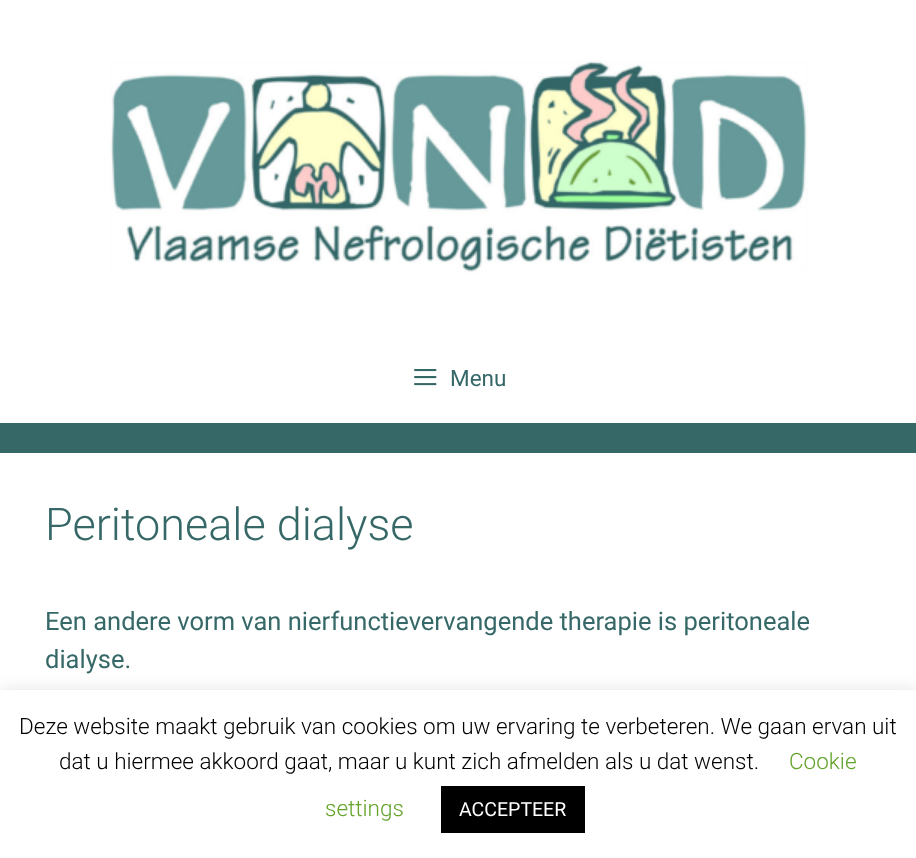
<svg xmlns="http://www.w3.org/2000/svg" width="916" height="858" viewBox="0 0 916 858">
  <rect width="100%" height="100%" fill="rgb(55,104,104)"/>
  <rect x="0" y="0" width="916" height="423" fill="rgb(255,255,255)"/>
  <image x="110" y="61" width="698" height="212" href="pic1.png"/>
  <image x="414" y="369" width="23" height="17" href="pic2.png"/>
  <text x="450" y="386" font-family="Roboto" font-size="22.5" fill="rgb(55,104,104)">Menu</text>
  <rect x="0" y="453" width="916" height="237" fill="rgb(255,255,255)"/>
  <text x="45" y="540" font-family="Roboto" font-size="45" font-weight="300" fill="rgb(55,104,104)">Peritoneale dialyse</text>
  <g font-family="Roboto" font-size="25.5" fill="rgb(55,104,104)">
    <text>
      <tspan x="45" y="630">Een andere vorm van nierfunctievervangende therapie is peritoneale</tspan>
      <tspan x="45" y="668">dialyse.</tspan>
    </text>
  </g>
  <rect x="0" y="689" width="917" height="168" fill="rgba(172,171,171,0.3)" filter="blur(7.5px)"/>
  <rect x="0" y="690" width="916" height="168" fill="rgb(255,255,255)"/>
  <g font-family="Roboto" font-size="22.5" font-weight="300" fill="rgb(0,0,0)">
    <text x="19" y="734">Deze website maakt gebruik van cookies om uw ervaring te verbeteren. We gaan ervan uit</text>
    <text x="59" y="769">dat u hiermee akkoord gaat, maar u kunt zich afmelden als u dat wenst.</text>
  </g>
  <g font-family="Roboto" font-size="22.5" font-weight="300" fill="rgb(98,163,41)">
    <text x="789" y="769">Cookie</text>
    <text x="325" y="816">settings</text>
  </g>
  <rect x="441" y="786" width="144" height="47" fill="rgb(0,0,0)"/>
  <text x="459" y="816" font-family="Roboto" font-size="19.5" fill="rgb(255,255,255)">ACCEPTEER</text>
</svg>
